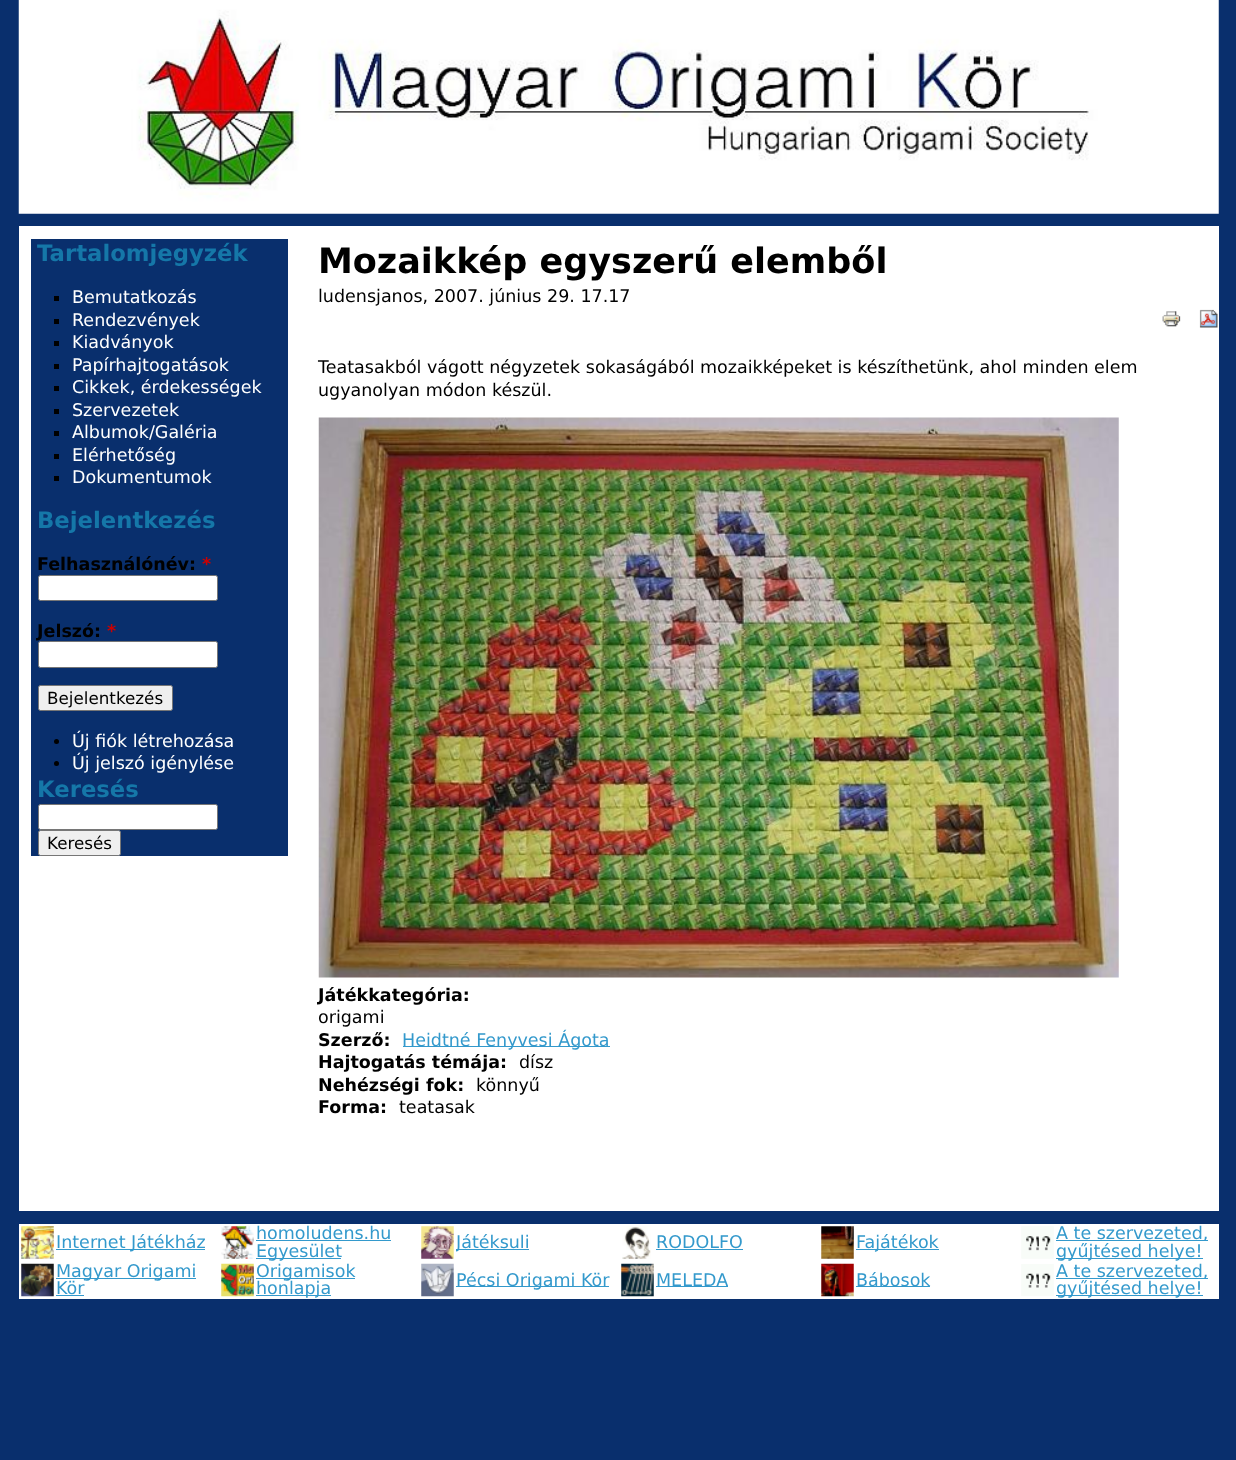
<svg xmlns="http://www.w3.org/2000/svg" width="1236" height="1460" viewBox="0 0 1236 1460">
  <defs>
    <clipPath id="clip1"><rect x="456" y="1233" width="73" height="20"/></clipPath>
  </defs>
  <rect width="100%" height="100%" fill="rgb(9,47,109)"/>
  <image x="18" y="0" width="1201" height="214" href="pic1.png"/>
  <rect x="19" y="226" width="1200" height="985" fill="rgb(255,255,255)"/>
  <rect x="31" y="239" width="257" height="617" fill="rgb(9,47,109)"/>
  <text x="37" y="261" font-family="DejaVu Sans" font-size="22.75" font-weight="bold" fill="rgb(21,119,168)">Tartalomjegyzék</text>
  <rect x="54" y="296" width="5" height="5" fill="rgb(0,0,0)"/>
  <text x="72" y="303" font-family="DejaVu Sans" font-size="17.5" fill="rgb(255,255,255)">Bemutatkozás</text>
  <rect x="54" y="319" width="5" height="5" fill="rgb(0,0,0)"/>
  <text x="72" y="326" font-family="DejaVu Sans" font-size="17.5" fill="rgb(255,255,255)">Rendezvények</text>
  <rect x="54" y="341" width="5" height="5" fill="rgb(0,0,0)"/>
  <text x="72" y="348" font-family="DejaVu Sans" font-size="17.5" fill="rgb(255,255,255)">Kiadványok</text>
  <rect x="54" y="364" width="5" height="5" fill="rgb(0,0,0)"/>
  <text x="72" y="371" font-family="DejaVu Sans" font-size="17.5" fill="rgb(255,255,255)">Papírhajtogatások</text>
  <rect x="54" y="386" width="5" height="5" fill="rgb(0,0,0)"/>
  <text x="72" y="393" font-family="DejaVu Sans" font-size="17.5" fill="rgb(255,255,255)">Cikkek, érdekességek</text>
  <rect x="54" y="409" width="5" height="5" fill="rgb(0,0,0)"/>
  <text x="72" y="416" font-family="DejaVu Sans" font-size="17.5" fill="rgb(255,255,255)">Szervezetek</text>
  <rect x="54" y="431" width="5" height="5" fill="rgb(0,0,0)"/>
  <text x="72" y="438" font-family="DejaVu Sans" font-size="17.5" fill="rgb(255,255,255)">Albumok/Galéria</text>
  <rect x="54" y="454" width="5" height="5" fill="rgb(0,0,0)"/>
  <text x="72" y="461" font-family="DejaVu Sans" font-size="17.5" fill="rgb(255,255,255)">Elérhetőség</text>
  <rect x="54" y="476" width="5" height="5" fill="rgb(0,0,0)"/>
  <text x="72" y="483" font-family="DejaVu Sans" font-size="17.5" fill="rgb(255,255,255)">Dokumentumok</text>
  <text x="37" y="528" font-family="DejaVu Sans" font-size="22.75" font-weight="bold" fill="rgb(21,119,168)">Bejelentkezés</text>
  <text x="37" y="570" font-family="DejaVu Sans" font-size="17.5" font-weight="bold" fill="rgb(0,0,0)">Felhasználónév:</text>
  <text x="202" y="570" font-family="DejaVu Sans" font-size="17.5" font-weight="bold" fill="rgb(204,0,0)">*</text>
  <rect x="38.5" y="575.5" width="179" height="25" rx="2" fill="rgb(255,255,255)" stroke="rgb(118,118,118)"/>
  <text x="37" y="637" font-family="DejaVu Sans" font-size="17.5" font-weight="bold" fill="rgb(0,0,0)">Jelszó:</text>
  <text x="107" y="637" font-family="DejaVu Sans" font-size="17.5" font-weight="bold" fill="rgb(204,0,0)">*</text>
  <rect x="38.5" y="641.5" width="179" height="26" rx="2" fill="rgb(255,255,255)" stroke="rgb(118,118,118)"/>
  <rect x="38.5" y="685.5" width="134" height="25" rx="2" fill="rgb(239,239,239)" stroke="rgb(118,118,118)"/>
  <text x="47" y="704" font-family="DejaVu Sans" font-size="16.75" fill="rgb(0,0,0)">Bejelentkezés</text>
  <circle cx="56.5" cy="741.5" r="2.5" fill="rgb(0,0,0)"/>
  <text x="72" y="747" font-family="DejaVu Sans" font-size="17.5" fill="rgb(255,255,255)">Új fiók létrehozása</text>
  <circle cx="56.5" cy="763.5" r="2.5" fill="rgb(0,0,0)"/>
  <text x="72" y="769" font-family="DejaVu Sans" font-size="17.5" fill="rgb(255,255,255)">Új jelszó igénylése</text>
  <text x="37" y="797" font-family="DejaVu Sans" font-size="22.75" font-weight="bold" fill="rgb(21,119,168)">Keresés</text>
  <rect x="38.5" y="804.5" width="179" height="25" rx="2" fill="rgb(255,255,255)" stroke="rgb(118,118,118)"/>
  <rect x="38.5" y="830.5" width="82" height="25" rx="2" fill="rgb(239,239,239)" stroke="rgb(118,118,118)"/>
  <text x="47" y="849" font-family="DejaVu Sans" font-size="16.75" fill="rgb(0,0,0)">Keresés</text>
  <text x="318" y="273" font-family="DejaVu Sans" font-size="35" font-weight="bold" fill="rgb(0,0,0)">Mozaikkép egyszerű elemből</text>
  <text x="318" y="302" font-family="DejaVu Sans" font-size="17.5" fill="rgb(0,0,0)">ludensjanos, 2007. június 29. 17.17</text>
  <image x="1162" y="311" width="19" height="16" href="pic2.png"/>
  <image x="1199" y="309" width="19" height="19" href="pic3.png"/>
  <g font-family="DejaVu Sans" font-size="17.5" fill="rgb(0,0,0)">
    <text>
      <tspan x="318" y="373">Teatasakból vágott négyzetek sokaságából mozaikképeket is készíthetünk, ahol minden elem</tspan>
      <tspan x="318" y="396">ugyanolyan módon készül.</tspan>
    </text>
  </g>
  <image x="318" y="417" width="801" height="561" href="pic4.png"/>
  <text x="318" y="1001" font-family="DejaVu Sans" font-size="17.5" font-weight="bold" fill="rgb(0,0,0)">Játékkategória:</text>
  <text x="318" y="1023" font-family="DejaVu Sans" font-size="17.5" fill="rgb(0,0,0)">origami</text>
  <text x="318" y="1046" font-family="DejaVu Sans" font-size="17.5" font-weight="bold" fill="rgb(0,0,0)">Szerző:</text>
  <rect x="403" y="1046" width="207" height="1" fill="rgb(51,153,204)"/>
  <text x="402" y="1046" font-family="DejaVu Sans" font-size="17.5" fill="rgb(51,153,204)">Heidtné Fenyvesi Ágota</text>
  <text x="318" y="1068" font-family="DejaVu Sans" font-size="17.5" font-weight="bold" fill="rgb(0,0,0)">Hajtogatás témája:</text>
  <text x="519" y="1068" font-family="DejaVu Sans" font-size="17.5" fill="rgb(0,0,0)">dísz</text>
  <text x="318" y="1091" font-family="DejaVu Sans" font-size="17.5" font-weight="bold" fill="rgb(0,0,0)">Nehézségi fok:</text>
  <text x="476" y="1091" font-family="DejaVu Sans" font-size="17.5" fill="rgb(0,0,0)">könnyű</text>
  <text x="318" y="1113" font-family="DejaVu Sans" font-size="17.5" font-weight="bold" fill="rgb(0,0,0)">Forma:</text>
  <text x="399" y="1113" font-family="DejaVu Sans" font-size="17.5" fill="rgb(0,0,0)">teatasak</text>
  <rect x="19" y="1224" width="1200" height="37" fill="rgb(255,255,255)"/>
  <image x="21" y="1226" width="33" height="33" href="pic5.png"/>
  <rect x="56" y="1249" width="149" height="1" fill="rgb(51,153,204)"/>
  <text x="56" y="1248" font-family="DejaVu Sans" font-size="17.5" fill="rgb(51,153,204)">Internet Játékház</text>
  <image x="221" y="1226" width="33" height="33" href="pic6.png"/>
  <text x="256" y="1239" font-family="DejaVu Sans" font-size="17.5" fill="rgb(51,153,204)">homoludens.hu</text>
  <rect x="256" y="1240" width="135" height="1" fill="rgb(51,153,204)"/>
  <rect x="256" y="1258" width="85" height="1" fill="rgb(51,153,204)"/>
  <text x="256" y="1257" font-family="DejaVu Sans" font-size="17.5" fill="rgb(51,153,204)">Egyesület</text>
  <image x="421" y="1226" width="33" height="33" href="pic7.png"/>
  <rect x="456" y="1249" width="73" height="1" fill="rgb(51,153,204)"/>
  <g clip-path="url(#clip1)">
    <text x="456" y="1248" font-family="DejaVu Sans" font-size="17.5" fill="rgb(51,153,204)">Játéksuli</text>
  </g>
  <image x="622" y="1226" width="29" height="33" href="pic8.png"/>
  <text x="656" y="1248" font-family="DejaVu Sans" font-size="17.5" fill="rgb(51,153,204)">RODOLFO</text>
  <rect x="656" y="1249" width="87" height="1" fill="rgb(51,153,204)"/>
  <image x="821" y="1226" width="33" height="33" href="pic9.png"/>
  <rect x="856" y="1249" width="83" height="1" fill="rgb(51,153,204)"/>
  <text x="856" y="1248" font-family="DejaVu Sans" font-size="17.5" fill="rgb(51,153,204)">Fajátékok</text>
  <image x="1021" y="1226" width="33" height="33" href="pic10.png"/>
  <rect x="1056" y="1240" width="152" height="1" fill="rgb(51,153,204)"/>
  <text x="1056" y="1239" font-family="DejaVu Sans" font-size="17.5" fill="rgb(51,153,204)">A te szervezeted,</text>
  <rect x="1056" y="1258" width="147" height="1" fill="rgb(51,153,204)"/>
  <text x="1056" y="1257" font-family="DejaVu Sans" font-size="17.5" fill="rgb(51,153,204)">gyűjtésed helye!</text>
  <rect x="19" y="1261" width="1200" height="38" fill="rgb(255,255,255)"/>
  <image x="21" y="1263" width="33" height="34" href="pic11.png"/>
  <rect x="56" y="1278" width="140" height="1" fill="rgb(51,153,204)"/>
  <g font-family="DejaVu Sans" font-size="17.5" fill="rgb(51,153,204)">
    <text>
      <tspan x="56" y="1277">Magyar Origami</tspan>
      <tspan x="56" y="1294">Kör</tspan>
    </text>
  </g>
  <rect x="56" y="1295" width="28" height="1" fill="rgb(51,153,204)"/>
  <image x="221" y="1263" width="33" height="34" href="pic12.png"/>
  <rect x="256" y="1278" width="99" height="1" fill="rgb(51,153,204)"/>
  <text x="256" y="1277" font-family="DejaVu Sans" font-size="17.5" fill="rgb(51,153,204)">Origamisok</text>
  <rect x="256" y="1295" width="75" height="1" fill="rgb(51,153,204)"/>
  <text x="256" y="1294" font-family="DejaVu Sans" font-size="17.5" fill="rgb(51,153,204)">honlapja</text>
  <image x="421" y="1263" width="33" height="34" href="pic13.png"/>
  <rect x="456" y="1286" width="153" height="1" fill="rgb(51,153,204)"/>
  <text x="456" y="1286" font-family="DejaVu Sans" font-size="17.5" fill="rgb(51,153,204)">Pécsi Origami Kör</text>
  <image x="621" y="1263" width="33" height="34" href="pic14.png"/>
  <text x="656" y="1286" font-family="DejaVu Sans" font-size="17.5" fill="rgb(51,153,204)">MELEDA</text>
  <rect x="656" y="1286" width="72" height="1" fill="rgb(51,153,204)"/>
  <image x="821" y="1263" width="33" height="34" href="pic15.png"/>
  <rect x="856" y="1286" width="74" height="1" fill="rgb(51,153,204)"/>
  <text x="856" y="1286" font-family="DejaVu Sans" font-size="17.5" fill="rgb(51,153,204)">Bábosok</text>
  <image x="1021" y="1264" width="33" height="32" href="pic16.png"/>
  <rect x="1056" y="1278" width="152" height="1" fill="rgb(51,153,204)"/>
  <text x="1056" y="1277" font-family="DejaVu Sans" font-size="17.5" fill="rgb(51,153,204)">A te szervezeted,</text>
  <rect x="1056" y="1295" width="147" height="1" fill="rgb(51,153,204)"/>
  <text x="1056" y="1294" font-family="DejaVu Sans" font-size="17.5" fill="rgb(51,153,204)">gyűjtésed helye!</text>
</svg>
